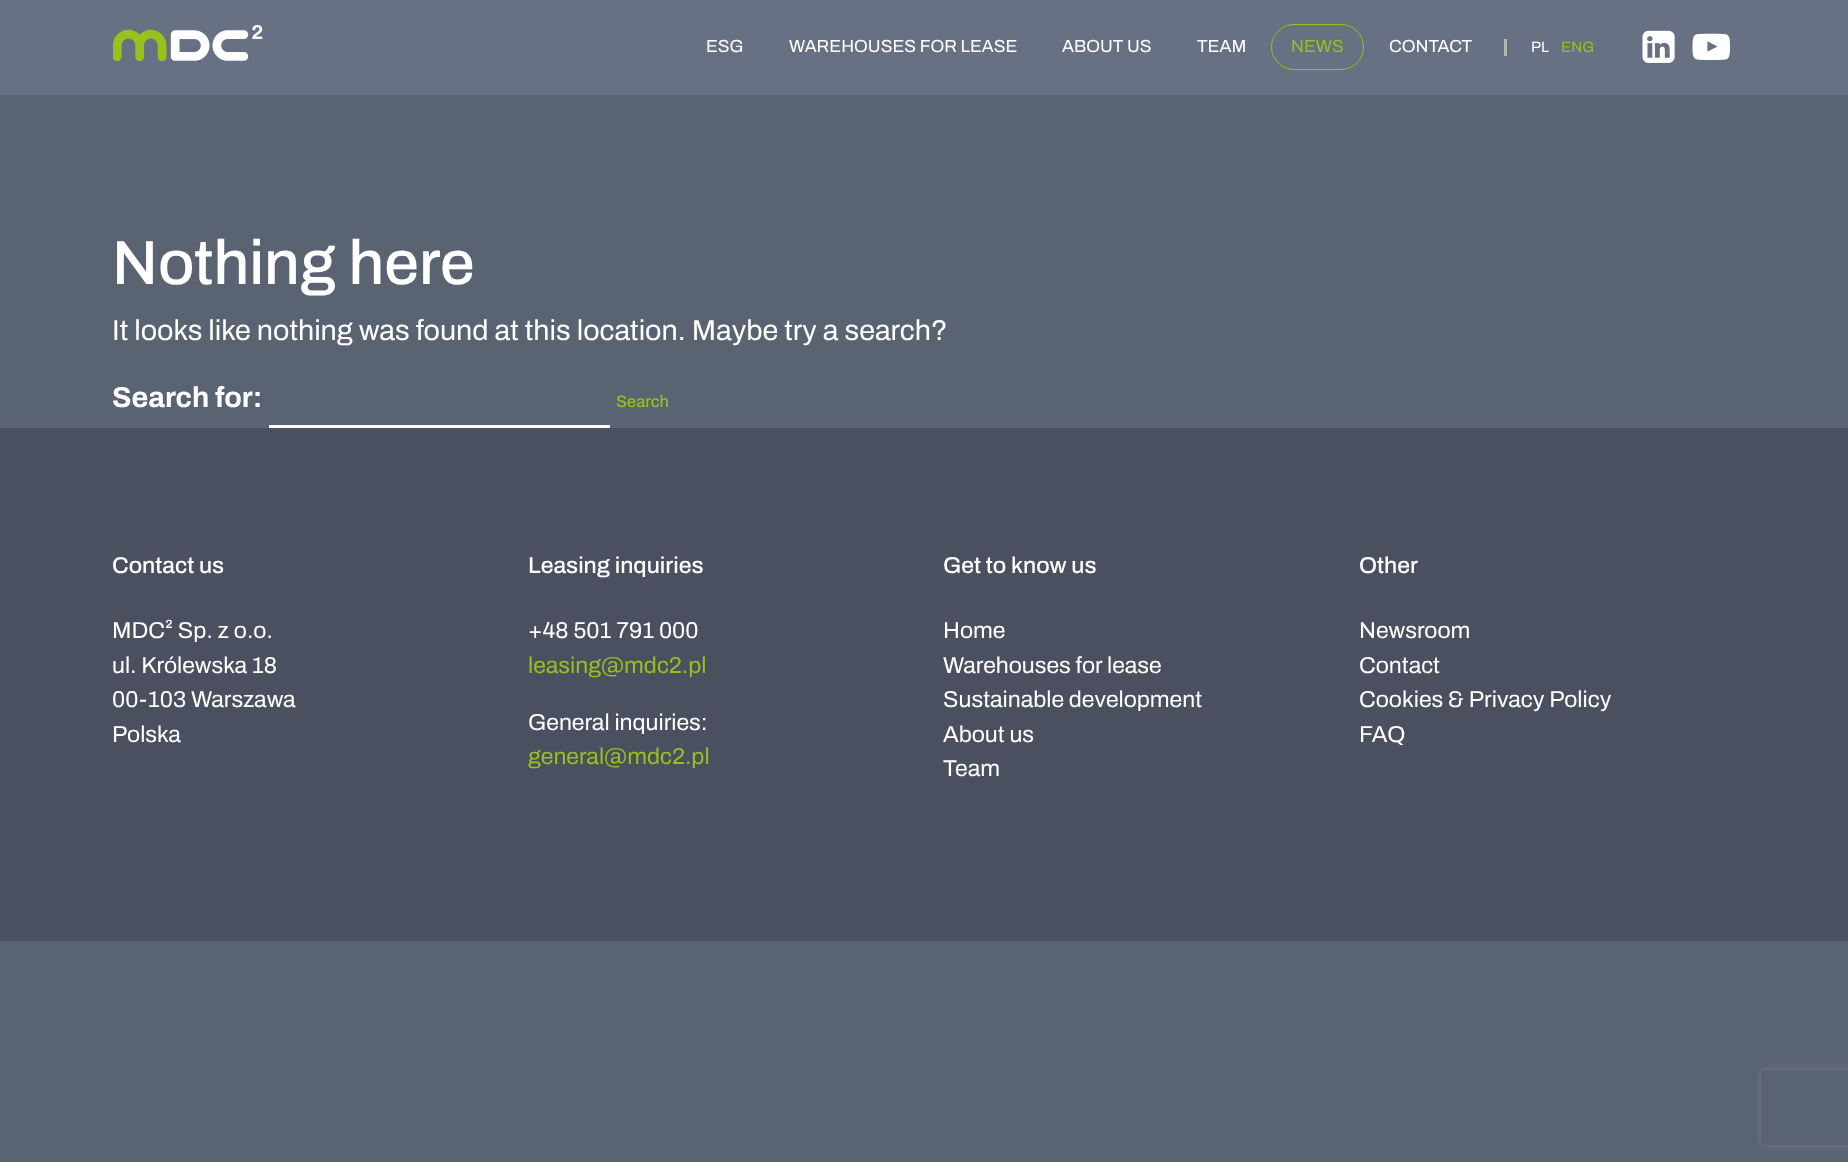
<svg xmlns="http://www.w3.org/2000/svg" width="1848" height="1162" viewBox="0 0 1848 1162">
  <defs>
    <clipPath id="clip1"><path d="M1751 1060H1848V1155H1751ZM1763.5 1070H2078.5C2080 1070 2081 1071 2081 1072.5V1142.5C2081 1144 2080 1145 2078.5 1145H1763.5C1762 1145 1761 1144 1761 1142.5V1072.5C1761 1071 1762 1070 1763.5 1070Z" clip-rule="evenodd"/></clipPath>
  </defs>
  <rect width="100%" height="100%" fill="rgb(90,99,114)"/>
  <rect x="0" y="0" width="1848" height="95" fill="rgb(103,113,131)"/>
  <image x="113" y="25" width="150" height="36" href="pic1.png"/>
  <g font-family="Archivo" font-size="17.5" fill="rgb(255,255,255)">
    <text x="706" y="52">ESG</text>
    <text x="789" y="52">WAREHOUSES FOR LEASE</text>
    <text x="1062" y="52">ABOUT US</text>
    <text x="1197" y="52">TEAM</text>
  </g>
  <rect x="1271.5" y="24.5" width="92" height="45" rx="22.5" fill="none" stroke="rgb(149,193,31)"/>
  <text x="1291" y="52" font-family="Archivo" font-size="17.5" fill="rgb(149,193,31)">NEWS</text>
  <text x="1389" y="52" font-family="Archivo" font-size="17.5" fill="rgb(255,255,255)">CONTACT</text>
  <rect x="1504" y="39" width="3" height="17" fill="rgb(181,181,181)"/>
  <text x="1531" y="52" font-family="Archivo" font-size="15" fill="rgb(255,255,255)">PL</text>
  <text x="1561" y="52" font-family="Archivo" font-size="15" fill="rgb(149,193,31)">ENG</text>
  <image x="1642" y="30" width="33" height="33" href="pic2.png"/>
  <image x="1692" y="33" width="38" height="28" href="pic3.png"/>
  <text x="112" y="284" font-family="Archivo" font-size="62.5" font-weight="500" fill="rgb(255,255,255)">Nothing here</text>
  <text x="112" y="340" font-family="Archivo" font-size="28.75" fill="rgb(255,255,255)">It looks like nothing was found at this location. Maybe try a search?</text>
  <text x="112" y="407" font-family="Archivo" font-size="28.75" font-weight="bold" fill="rgb(255,255,255)">Search for:</text>
  <text x="616" y="407" font-family="Archivo" font-size="16.5" font-weight="500" fill="rgb(149,193,31)">Search</text>
  <rect x="269" y="425" width="341" height="3" fill="rgb(255,255,255)"/>
  <rect x="0" y="428" width="1848" height="513" fill="rgb(74,80,96)"/>
  <text x="112" y="573" font-family="Archivo" font-size="23" font-weight="500" fill="rgb(255,255,255)">Contact us</text>
  <g font-family="Archivo" font-size="23" fill="rgb(255,255,255)">
    <text>
      <tspan x="112" y="638">MDC² Sp. z o.o.</tspan>
      <tspan x="112" y="673">ul. Królewska 18</tspan>
      <tspan x="112" y="707">00-103 Warszawa</tspan>
      <tspan x="112" y="742">Polska</tspan>
    </text>
  </g>
  <text x="528" y="573" font-family="Archivo" font-size="23" font-weight="500" fill="rgb(255,255,255)">Leasing inquiries</text>
  <text x="528" y="638" font-family="Archivo" font-size="23" fill="rgb(255,255,255)">+48 501 791 000</text>
  <text x="528" y="673" font-family="Archivo" font-size="23" fill="rgb(149,193,31)">leasing@mdc2.pl</text>
  <text x="528" y="730" font-family="Archivo" font-size="23" fill="rgb(255,255,255)">General inquiries:</text>
  <text x="528" y="764" font-family="Archivo" font-size="23" fill="rgb(149,193,31)">general@mdc2.pl</text>
  <text x="943" y="573" font-family="Archivo" font-size="23" font-weight="500" fill="rgb(255,255,255)">Get to know us</text>
  <g font-family="Archivo" font-size="23" fill="rgb(255,255,255)">
    <text>
      <tspan x="943" y="638">Home</tspan>
      <tspan x="943" y="673">Warehouses for lease</tspan>
      <tspan x="943" y="707">Sustainable development</tspan>
      <tspan x="943" y="742">About us</tspan>
      <tspan x="943" y="776">Team</tspan>
    </text>
  </g>
  <text x="1359" y="573" font-family="Archivo" font-size="23" font-weight="500" fill="rgb(255,255,255)">Other</text>
  <g font-family="Archivo" font-size="23" fill="rgb(255,255,255)">
    <text>
      <tspan x="1359" y="638">Newsroom</tspan>
      <tspan x="1359" y="673">Contact</tspan>
      <tspan x="1359" y="707">Cookies &amp; Privacy Policy</tspan>
      <tspan x="1359" y="742">FAQ</tspan>
    </text>
  </g>
  <g clip-path="url(#clip1)">
    <rect x="1761" y="1070" width="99" height="75" rx="2.5" fill="rgb(128,128,128)" filter="blur(3px)"/>
  </g>
</svg>
